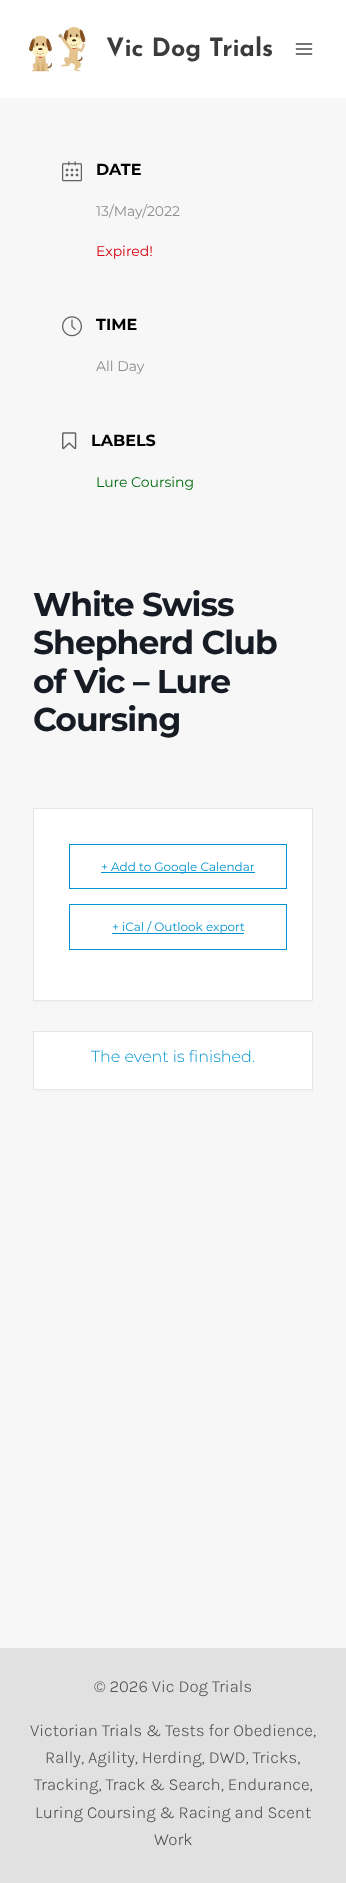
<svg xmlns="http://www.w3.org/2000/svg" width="346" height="1883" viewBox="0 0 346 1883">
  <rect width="100%" height="100%" fill="rgb(247,247,247)"/>
  <rect x="0" y="0" width="346" height="98" fill="rgb(255,255,255)"/>
  <image x="29" y="26" width="57" height="46" href="pic1.png"/>
  <text x="106" y="56" font-family="Josefin Sans" font-size="25" font-weight="bold" fill="rgb(59,59,59)">Vic Dog Trials</text>
  <image x="295" y="43" width="18" height="12" href="pic2.png"/>
  <image x="62" y="161" width="20" height="21" href="pic3.png"/>
  <text x="96" y="175" font-family="Montserrat" font-size="16" font-weight="bold" fill="rgb(0,0,0)">DATE</text>
  <text x="96" y="216" font-family="Montserrat" font-size="14" fill="rgb(141,141,141)">13/May/2022</text>
  <text x="96" y="256" font-family="Montserrat" font-size="14" fill="rgb(216,0,12)">Expired!</text>
  <image x="62" y="316" width="20" height="21" href="pic4.png"/>
  <text x="96" y="330" font-family="Montserrat" font-size="16" font-weight="bold" fill="rgb(0,0,0)">TIME</text>
  <text x="96" y="371" font-family="Montserrat" font-size="14" fill="rgb(141,141,141)">All Day</text>
  <image x="62" y="432" width="15" height="18" href="pic5.png"/>
  <text x="91" y="446" font-family="Montserrat" font-size="16" font-weight="bold" fill="rgb(0,0,0)">LABELS</text>
  <text x="96" y="487" font-family="Montserrat" font-size="14" fill="rgb(0,107,12)">Lure Coursing</text>
  <g font-family="Montserrat" font-size="33" font-weight="bold" letter-spacing="-1" fill="rgb(23,28,36)">
    <text>
      <tspan x="33" y="616">White Swiss</tspan>
      <tspan x="33" y="654">Shepherd Club</tspan>
      <tspan x="33" y="693">of Vic – Lure</tspan>
      <tspan x="33" y="731">Coursing</tspan>
    </text>
  </g>
  <rect x="33" y="1001" width="280" height="2" fill="rgb(243,243,243)"/>
  <rect x="33.5" y="808.5" width="279" height="192" fill="rgb(255,255,255)" stroke="rgb(230,230,230)"/>
  <rect x="69.5" y="844.5" width="217" height="44" fill="none" stroke="rgb(0,147,208)"/>
  <rect x="101" y="872" width="154" height="1" fill="rgb(0,147,208)"/>
  <text x="101" y="871" font-family="Montserrat" font-size="12" fill="rgb(0,147,208)">+ Add to Google Calendar</text>
  <rect x="69.5" y="904.5" width="217" height="45" fill="none" stroke="rgb(0,147,208)"/>
  <rect x="112" y="933" width="132" height="1" fill="rgb(0,147,208)"/>
  <text x="112" y="931" font-family="Montserrat" font-size="12" fill="rgb(0,147,208)">+ iCal / Outlook export</text>
  <rect x="33" y="1090" width="280" height="2" fill="rgb(243,243,243)"/>
  <rect x="33.5" y="1031.5" width="279" height="58" fill="rgb(255,255,255)" stroke="rgb(230,230,230)"/>
  <text x="91" y="1062" font-family="Montserrat" font-size="16" font-weight="300" fill="rgb(0,147,208)">The event is finished.</text>
  <rect x="0" y="1648" width="346" height="235" fill="rgb(225,225,225)"/>
  <g font-family="Karla" font-size="17" font-weight="300" fill="rgb(81,81,81)">
    <text x="94" y="1692">© 2026 Vic Dog Trials</text>
    <text x="30" y="1736">Victorian Trials &amp; Tests for Obedience,</text>
    <text x="45" y="1763">Rally, Agility, Herding, DWD, Tricks,</text>
    <text x="34" y="1790">Tracking, Track &amp; Search, Endurance,</text>
    <text x="35" y="1818">Luring Coursing &amp; Racing and Scent</text>
    <text x="154" y="1845">Work</text>
  </g>
</svg>
